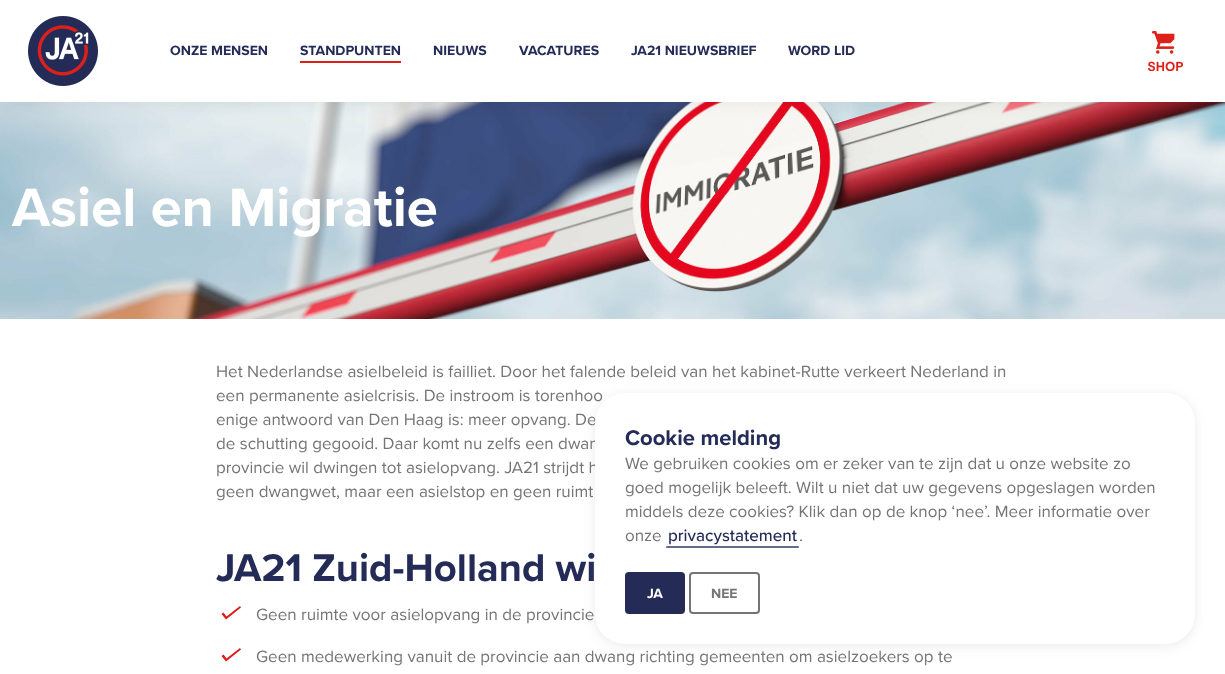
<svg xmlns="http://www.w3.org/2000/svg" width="1225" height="674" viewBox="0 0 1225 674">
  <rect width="100%" height="100%" fill="rgb(255,255,255)"/>
  <image x="0" y="102" width="1225" height="217" href="pic3.png"/>
  <rect x="0" y="0" width="1225" height="102" fill="rgba(33,33,33,0.08)" filter="blur(8px)"/>
  <rect x="0" y="0" width="1225" height="102" fill="rgb(255,255,255)"/>
  <image x="28" y="16" width="70" height="70" href="pic1.png"/>
  <text x="170" y="55" font-family="Proxima Nova" font-size="14" font-weight="bold" fill="rgb(36,43,87)">ONZE MENSEN</text>
  <rect x="300" y="61" width="101" height="2" fill="rgb(223,32,26)"/>
  <g font-family="Proxima Nova" font-size="14" font-weight="bold" fill="rgb(36,43,87)">
    <text x="300" y="55">STANDPUNTEN</text>
    <text x="433" y="55">NIEUWS</text>
    <text x="519" y="55">VACATURES</text>
    <text x="631" y="55">JA21 NIEUWSBRIEF</text>
    <text x="788" y="55">WORD LID</text>
  </g>
  <image x="1148" y="31" width="35" height="40" href="pic2.png"/>
  <text x="12" y="226" font-family="Proxima Nova" font-size="56" font-weight="bold" fill="rgb(255,255,255)">Asiel en Migratie</text>
  <g font-family="Proxima Nova" font-size="17" fill="rgb(117,117,117)">
    <text>
      <tspan x="216" y="377">Het Nederlandse asielbeleid is failliet. Door het falende beleid van het kabinet-Rutte verkeert Nederland in</tspan>
      <tspan x="216" y="401">een permanente asielcrisis. De instroom is torenhoo</tspan>
      <tspan x="216" y="425">enige antwoord van Den Haag is: meer opvang. De</tspan>
      <tspan x="216" y="449">de schutting gegooid. Daar komt nu zelfs een dwan</tspan>
      <tspan x="216" y="473">provincie wil dwingen tot asielopvang. JA21 strijdt h</tspan>
      <tspan x="216" y="497">geen dwangwet, maar een asielstop en geen ruimt</tspan>
    </text>
  </g>
  <text x="216" y="581" font-family="Proxima Nova" font-size="40" font-weight="bold" fill="rgb(36,43,87)">JA21 Zuid-Holland wi</text>
  <path d="M226.5 616.5L223.5 612.5L221.5 614L226 619.5L241 607.5L240 606Z" fill="rgb(223,26,26)"/>
  <text x="256" y="620" font-family="Proxima Nova" font-size="17" fill="rgb(117,117,117)">Geen ruimte voor asielopvang in de provincie</text>
  <path d="M226.5 658.5L223.5 654.5L221.5 656L226 661.5L241 649.5L240 648Z" fill="rgb(223,26,26)"/>
  <text x="256" y="662" font-family="Proxima Nova" font-size="17" fill="rgb(117,117,117)">Geen medewerking vanuit de provincie aan dwang richting gemeenten om asielzoekers op te</text>
  <rect x="595" y="395" width="600" height="251" rx="30" fill="rgba(117,117,117,0.15)" filter="blur(6px)"/>
  <rect x="595" y="393" width="600" height="251" rx="30" fill="rgb(255,255,255)"/>
  <text x="625" y="445" font-family="Proxima Nova" font-size="22" font-weight="bold" fill="rgb(36,43,87)">Cookie melding</text>
  <g font-family="Proxima Nova" font-size="17" fill="rgb(117,117,117)">
    <text>
      <tspan x="625" y="469">We gebruiken cookies om er zeker van te zijn dat u onze website zo</tspan>
      <tspan x="625" y="493">goed mogelijk beleeft. Wilt u niet dat uw gegevens opgeslagen worden</tspan>
      <tspan x="625" y="517">middels deze cookies? Klik dan op de knop ‘nee’. Meer informatie over</tspan>
      <tspan x="625" y="541">onze</tspan>
    </text>
  </g>
  <text x="668" y="541" font-family="Proxima Nova" font-size="17" font-weight="500" fill="rgb(36,43,87)">privacystatement</text>
  <rect x="666" y="546" width="133" height="2" rx="1" fill="rgb(102,107,137)"/>
  <text x="799" y="541" font-family="Proxima Nova" font-size="17" fill="rgb(117,117,117)">.</text>
  <rect x="625" y="572" width="60" height="42" rx="4" fill="rgb(36,43,87)"/>
  <text x="647" y="598" font-family="Proxima Nova" font-size="14" font-weight="bold" fill="rgb(255,255,255)">JA</text>
  <rect x="690" y="573" width="69" height="40" rx="3" fill="none" stroke="rgb(117,117,117)" stroke-width="2"/>
  <text x="711" y="598" font-family="Proxima Nova" font-size="14" font-weight="bold" fill="rgb(117,117,117)">NEE</text>
</svg>
